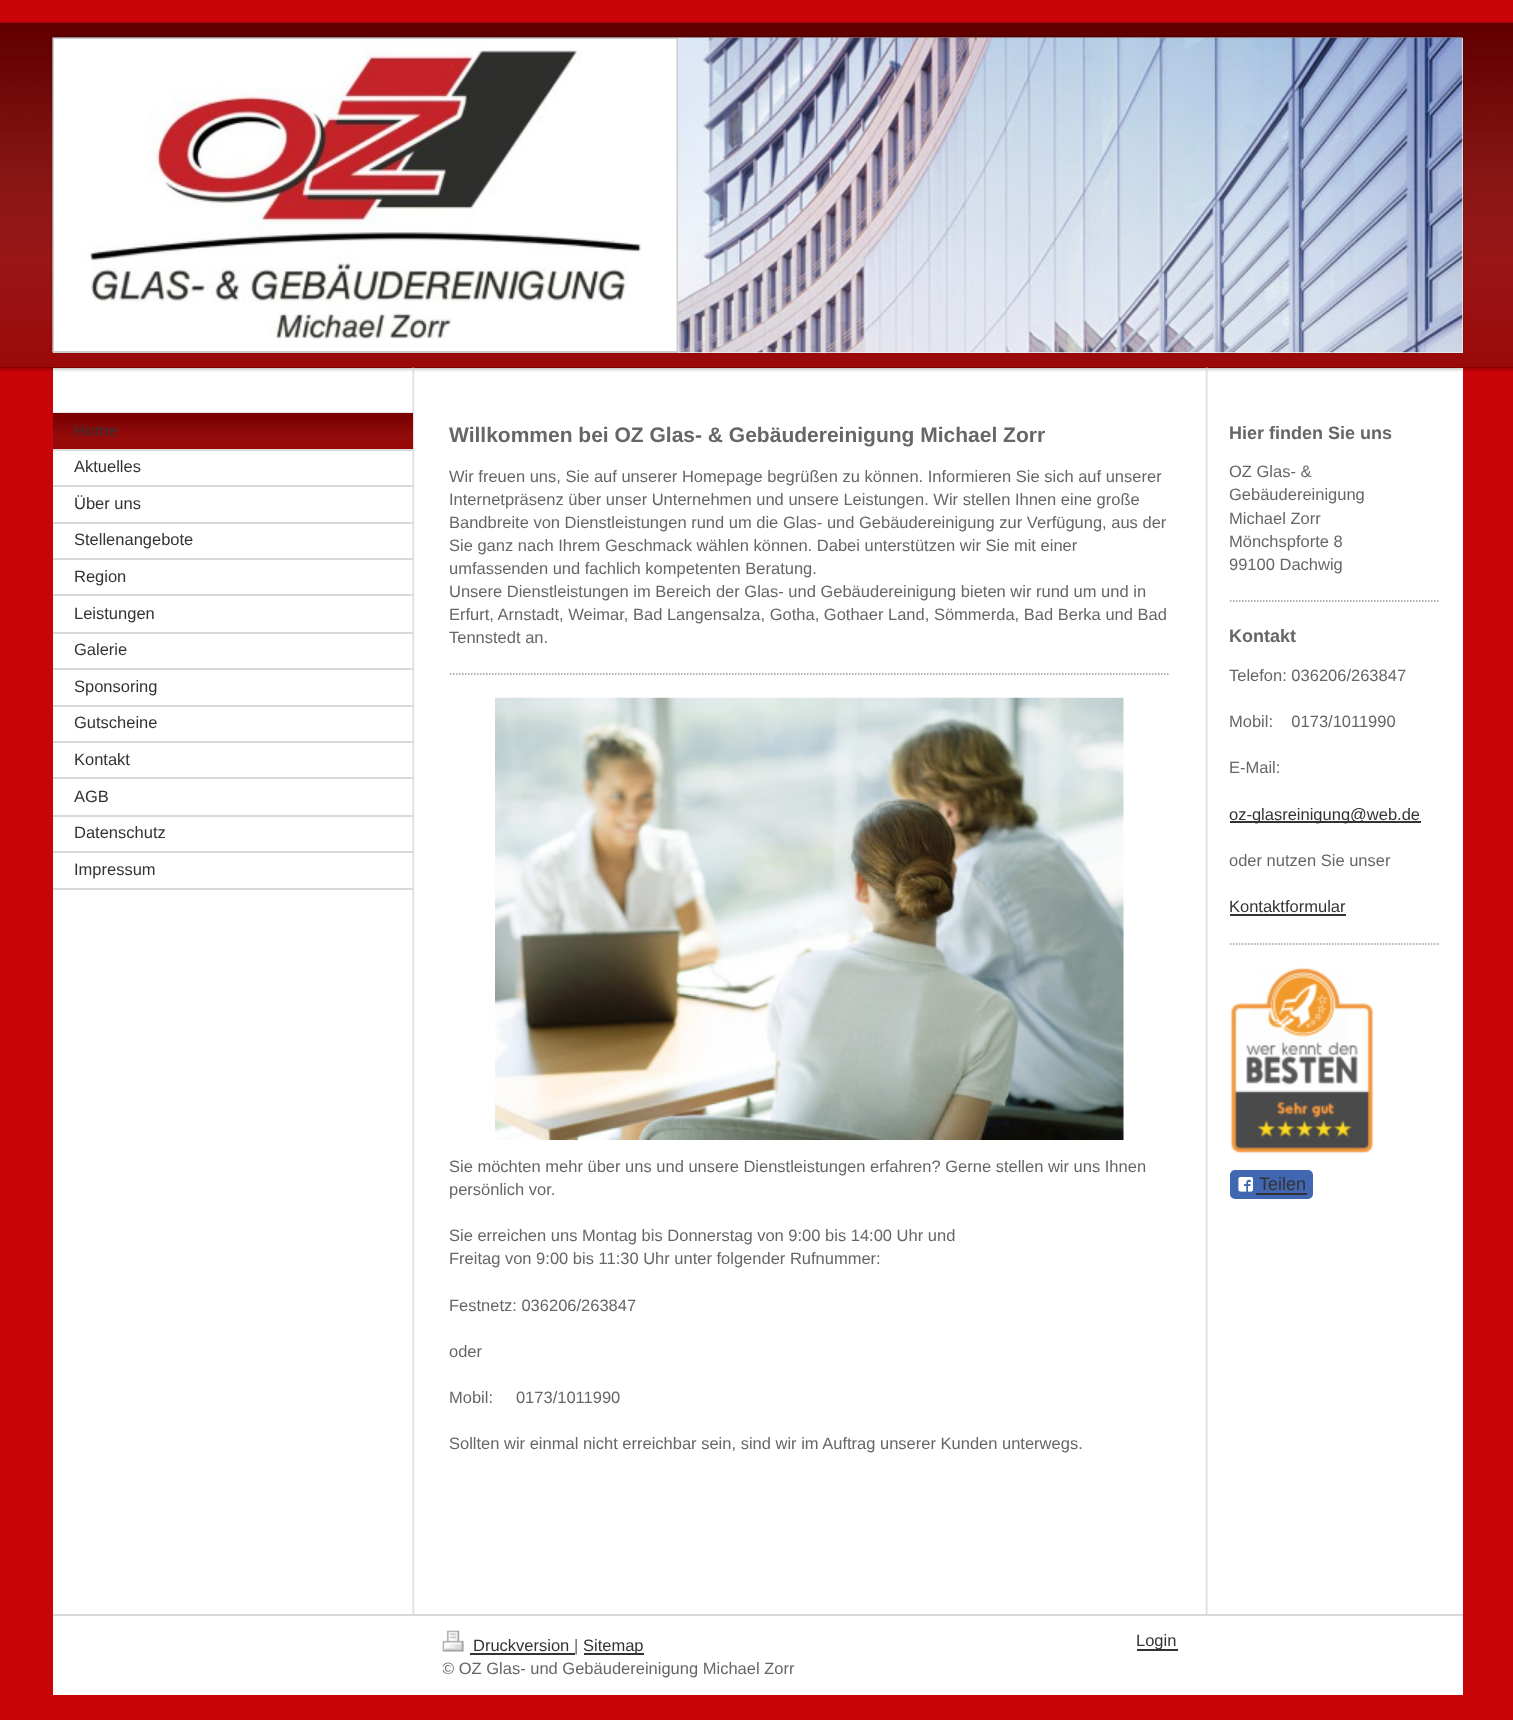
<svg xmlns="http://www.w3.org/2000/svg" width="1513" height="1720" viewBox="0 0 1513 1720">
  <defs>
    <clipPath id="clip1"><rect x="443" y="1631" width="735" height="49"/></clipPath>
  </defs>
  <rect width="100%" height="100%" fill="rgb(201,5,9)"/>
  <rect x="0" y="23" width="1513" height="345" fill="rgb(153,0,0)"/>
  <image x="0" y="22" width="1513" height="345" href="pic1.png"/>
  <image x="50" y="34" width="1415" height="320" href="pic2.png"/>
  <rect x="678" y="38" width="785" height="315" fill="rgb(238,238,238)"/>
  <image x="52" y="37" width="1411" height="316" href="pic3.png"/>
  <rect x="54" y="39" width="623" height="313" fill="none" stroke="rgb(204,204,204)" stroke-width="2"/>
  <image x="54" y="39" width="623" height="312" href="pic4.png"/>
  <image x="0" y="367" width="1513" height="5" href="pic5.png"/>
  <rect x="53" y="368" width="1410" height="1246" fill="rgb(255,255,255)"/>
  <image x="52" y="367" width="1411" height="5" href="pic6.png"/>
  <image x="412" y="367" width="796" height="1247" href="pic7.png"/>
  <rect x="53" y="413" width="360" height="36" fill="rgb(153,0,0)"/>
  <image x="52" y="412" width="361" height="37" href="pic8.png"/>
  <rect x="53" y="449" width="360" height="2" fill="rgb(218,218,218)"/>
  <text x="74" y="436" font-family="Liberation Sans" font-size="16.5" fill="rgb(51,51,51)">Home</text>
  <rect x="53" y="485" width="360" height="2" fill="rgb(218,218,218)"/>
  <text x="74" y="472" font-family="Liberation Sans" font-size="16.5" fill="rgb(51,51,51)">Aktuelles</text>
  <rect x="53" y="522" width="360" height="2" fill="rgb(218,218,218)"/>
  <text x="74" y="509" font-family="Liberation Sans" font-size="16.5" fill="rgb(51,51,51)">Über uns</text>
  <rect x="53" y="558" width="360" height="2" fill="rgb(218,218,218)"/>
  <text x="74" y="545" font-family="Liberation Sans" font-size="16.5" fill="rgb(51,51,51)">Stellenangebote</text>
  <rect x="53" y="594" width="360" height="2" fill="rgb(218,218,218)"/>
  <text x="74" y="582" font-family="Liberation Sans" font-size="16.5" fill="rgb(51,51,51)">Region</text>
  <rect x="53" y="632" width="360" height="2" fill="rgb(218,218,218)"/>
  <text x="74" y="619" font-family="Liberation Sans" font-size="16.5" fill="rgb(51,51,51)">Leistungen</text>
  <rect x="53" y="668" width="360" height="2" fill="rgb(218,218,218)"/>
  <text x="74" y="655" font-family="Liberation Sans" font-size="16.5" fill="rgb(51,51,51)">Galerie</text>
  <rect x="53" y="705" width="360" height="2" fill="rgb(218,218,218)"/>
  <text x="74" y="692" font-family="Liberation Sans" font-size="16.5" fill="rgb(51,51,51)">Sponsoring</text>
  <rect x="53" y="741" width="360" height="2" fill="rgb(218,218,218)"/>
  <text x="74" y="728" font-family="Liberation Sans" font-size="16.5" fill="rgb(51,51,51)">Gutscheine</text>
  <rect x="53" y="777" width="360" height="2" fill="rgb(218,218,218)"/>
  <text x="74" y="765" font-family="Liberation Sans" font-size="16.5" fill="rgb(51,51,51)">Kontakt</text>
  <rect x="53" y="815" width="360" height="2" fill="rgb(218,218,218)"/>
  <text x="74" y="802" font-family="Liberation Sans" font-size="16.5" fill="rgb(51,51,51)">AGB</text>
  <rect x="53" y="851" width="360" height="2" fill="rgb(218,218,218)"/>
  <text x="74" y="838" font-family="Liberation Sans" font-size="16.5" fill="rgb(51,51,51)">Datenschutz</text>
  <rect x="53" y="888" width="360" height="2" fill="rgb(218,218,218)"/>
  <text x="74" y="875" font-family="Liberation Sans" font-size="16.5" fill="rgb(51,51,51)">Impressum</text>
  <text x="449" y="442" font-family="Liberation Sans" font-size="21" font-weight="bold" fill="rgb(102,102,102)">Willkommen bei OZ Glas- &amp; Gebäudereinigung Michael Zorr</text>
  <g font-family="Liberation Sans" font-size="16.5" fill="rgb(102,102,102)">
    <text>
      <tspan x="449" y="482">Wir freuen uns, Sie auf unserer Homepage begrüßen zu können. Informieren Sie sich auf unserer</tspan>
      <tspan x="449" y="505">Internetpräsenz über unser Unternehmen und unsere Leistungen. Wir stellen Ihnen eine große</tspan>
      <tspan x="449" y="528">Bandbreite von Dienstleistungen rund um die Glas- und Gebäudereinigung zur Verfügung, aus der</tspan>
      <tspan x="449" y="551">Sie ganz nach Ihrem Geschmack wählen können. Dabei unterstützen wir Sie mit einer</tspan>
      <tspan x="449" y="574">umfassenden und fachlich kompetenten Beratung.</tspan>
      <tspan x="449" y="597">Unsere Dienstleistungen im Bereich der Glas- und Gebäudereinigung bieten wir rund um und in</tspan>
      <tspan x="449" y="620">Erfurt, Arnstadt, Weimar, Bad Langensalza, Gotha, Gothaer Land, Sömmerda, Bad Berka und Bad</tspan>
      <tspan x="449" y="643">Tennstedt an.</tspan>
    </text>
  </g>
  <path d="M450 674H1170" fill="none" stroke="rgb(153,153,153)" stroke-width="1.5" stroke-dasharray="1.5 1.5"/>
  <image x="495" y="697" width="629" height="443" href="pic9.png"/>
  <g font-family="Liberation Sans" font-size="16.5" fill="rgb(102,102,102)">
    <text>
      <tspan x="449" y="1172">Sie möchten mehr über uns und unsere Dienstleistungen erfahren? Gerne stellen wir uns Ihnen</tspan>
      <tspan x="449" y="1195">persönlich vor.</tspan>
    </text>
    <text>
      <tspan x="449" y="1241">Sie erreichen uns Montag bis Donnerstag von 9:00 bis 14:00 Uhr und</tspan>
      <tspan x="449" y="1264">Freitag von 9:00 bis 11:30 Uhr unter folgender Rufnummer:</tspan>
    </text>
    <text x="449" y="1311">Festnetz: 036206/263847</text>
    <text x="449" y="1357">oder</text>
    <text x="449" y="1403" xml:space="preserve">Mobil:     0173/1011990</text>
    <text x="449" y="1449">Sollten wir einmal nicht erreichbar sein, sind wir im Auftrag unserer Kunden unterwegs.</text>
  </g>
  <text x="1229" y="439" font-family="Liberation Sans" font-size="18" font-weight="bold" fill="rgb(102,102,102)">Hier finden Sie uns</text>
  <g font-family="Liberation Sans" font-size="16.5" fill="rgb(102,102,102)">
    <text>
      <tspan x="1229" y="477">OZ Glas- &amp;</tspan>
      <tspan x="1229" y="500">Gebäudereinigung</tspan>
      <tspan x="1229" y="524">Michael Zorr</tspan>
      <tspan x="1229" y="547">Mönchspforte 8</tspan>
      <tspan x="1229" y="570">99100 Dachwig</tspan>
    </text>
  </g>
  <path d="M1230 601H1440" fill="none" stroke="rgb(153,153,153)" stroke-width="1.5" stroke-dasharray="1.5 1.5"/>
  <text x="1229" y="642" font-family="Liberation Sans" font-size="18" font-weight="bold" fill="rgb(102,102,102)">Kontakt</text>
  <g font-family="Liberation Sans" font-size="16.5" fill="rgb(102,102,102)">
    <text x="1229" y="681">Telefon: 036206/263847</text>
    <text x="1229" y="727" xml:space="preserve">Mobil:    0173/1011990</text>
    <text x="1229" y="773">E-Mail:</text>
  </g>
  <rect x="1230" y="821" width="191" height="2" fill="rgb(51,51,51)"/>
  <text x="1229" y="820" font-family="Liberation Sans" font-size="16.5" fill="rgb(51,51,51)">oz-glasreinigung@web.de</text>
  <text x="1229" y="866" font-family="Liberation Sans" font-size="16.5" fill="rgb(102,102,102)">oder nutzen Sie unser</text>
  <text x="1229" y="912" font-family="Liberation Sans" font-size="16.5" fill="rgb(51,51,51)">Kontaktformular</text>
  <rect x="1230" y="914" width="116" height="2" fill="rgb(51,51,51)"/>
  <path d="M1230 944H1440" fill="none" stroke="rgb(153,153,153)" stroke-width="1.5" stroke-dasharray="1.5 1.5"/>
  <image x="1230" y="967" width="144" height="187" href="pic10.png"/>
  <rect x="1230" y="1170" width="83" height="29" rx="5" fill="rgb(66,103,178)"/>
  <image x="1238" y="1177" width="15" height="15" href="pic11.png"/>
  <text x="1259" y="1190" font-family="Liberation Sans" font-size="18" fill="rgb(51,51,51)">Teilen</text>
  <rect x="1256" y="1193" width="51" height="2" fill="rgb(51,51,51)"/>
  <rect x="53" y="1616" width="1410" height="79" fill="rgb(255,255,255)"/>
  <rect x="53" y="1614" width="1410" height="2" fill="rgb(218,218,218)"/>
  <image x="442" y="1630" width="22" height="22" href="pic12.png"/>
  <text x="473" y="1651" font-family="Liberation Sans" font-size="16.5" fill="rgb(51,51,51)">Druckversion</text>
  <rect x="470" y="1653" width="105" height="2" fill="rgb(51,51,51)"/>
  <text x="574" y="1651" font-family="Liberation Sans" font-size="16.5" fill="rgb(102,102,102)">|</text>
  <rect x="584" y="1653" width="60" height="2" fill="rgb(51,51,51)"/>
  <text x="583" y="1651" font-family="Liberation Sans" font-size="16.5" fill="rgb(51,51,51)">Sitemap</text>
  <g clip-path="url(#clip1)">
    <text x="442" y="1674" font-family="Liberation Sans" font-size="16.5" fill="rgb(102,102,102)">© OZ Glas- und Gebäudereinigung Michael Zorr</text>
  </g>
  <rect x="1137" y="1649" width="41" height="2" fill="rgb(51,51,51)"/>
  <text x="1136" y="1646" font-family="Liberation Sans" font-size="16.5" fill="rgb(51,51,51)">Login</text>
</svg>
